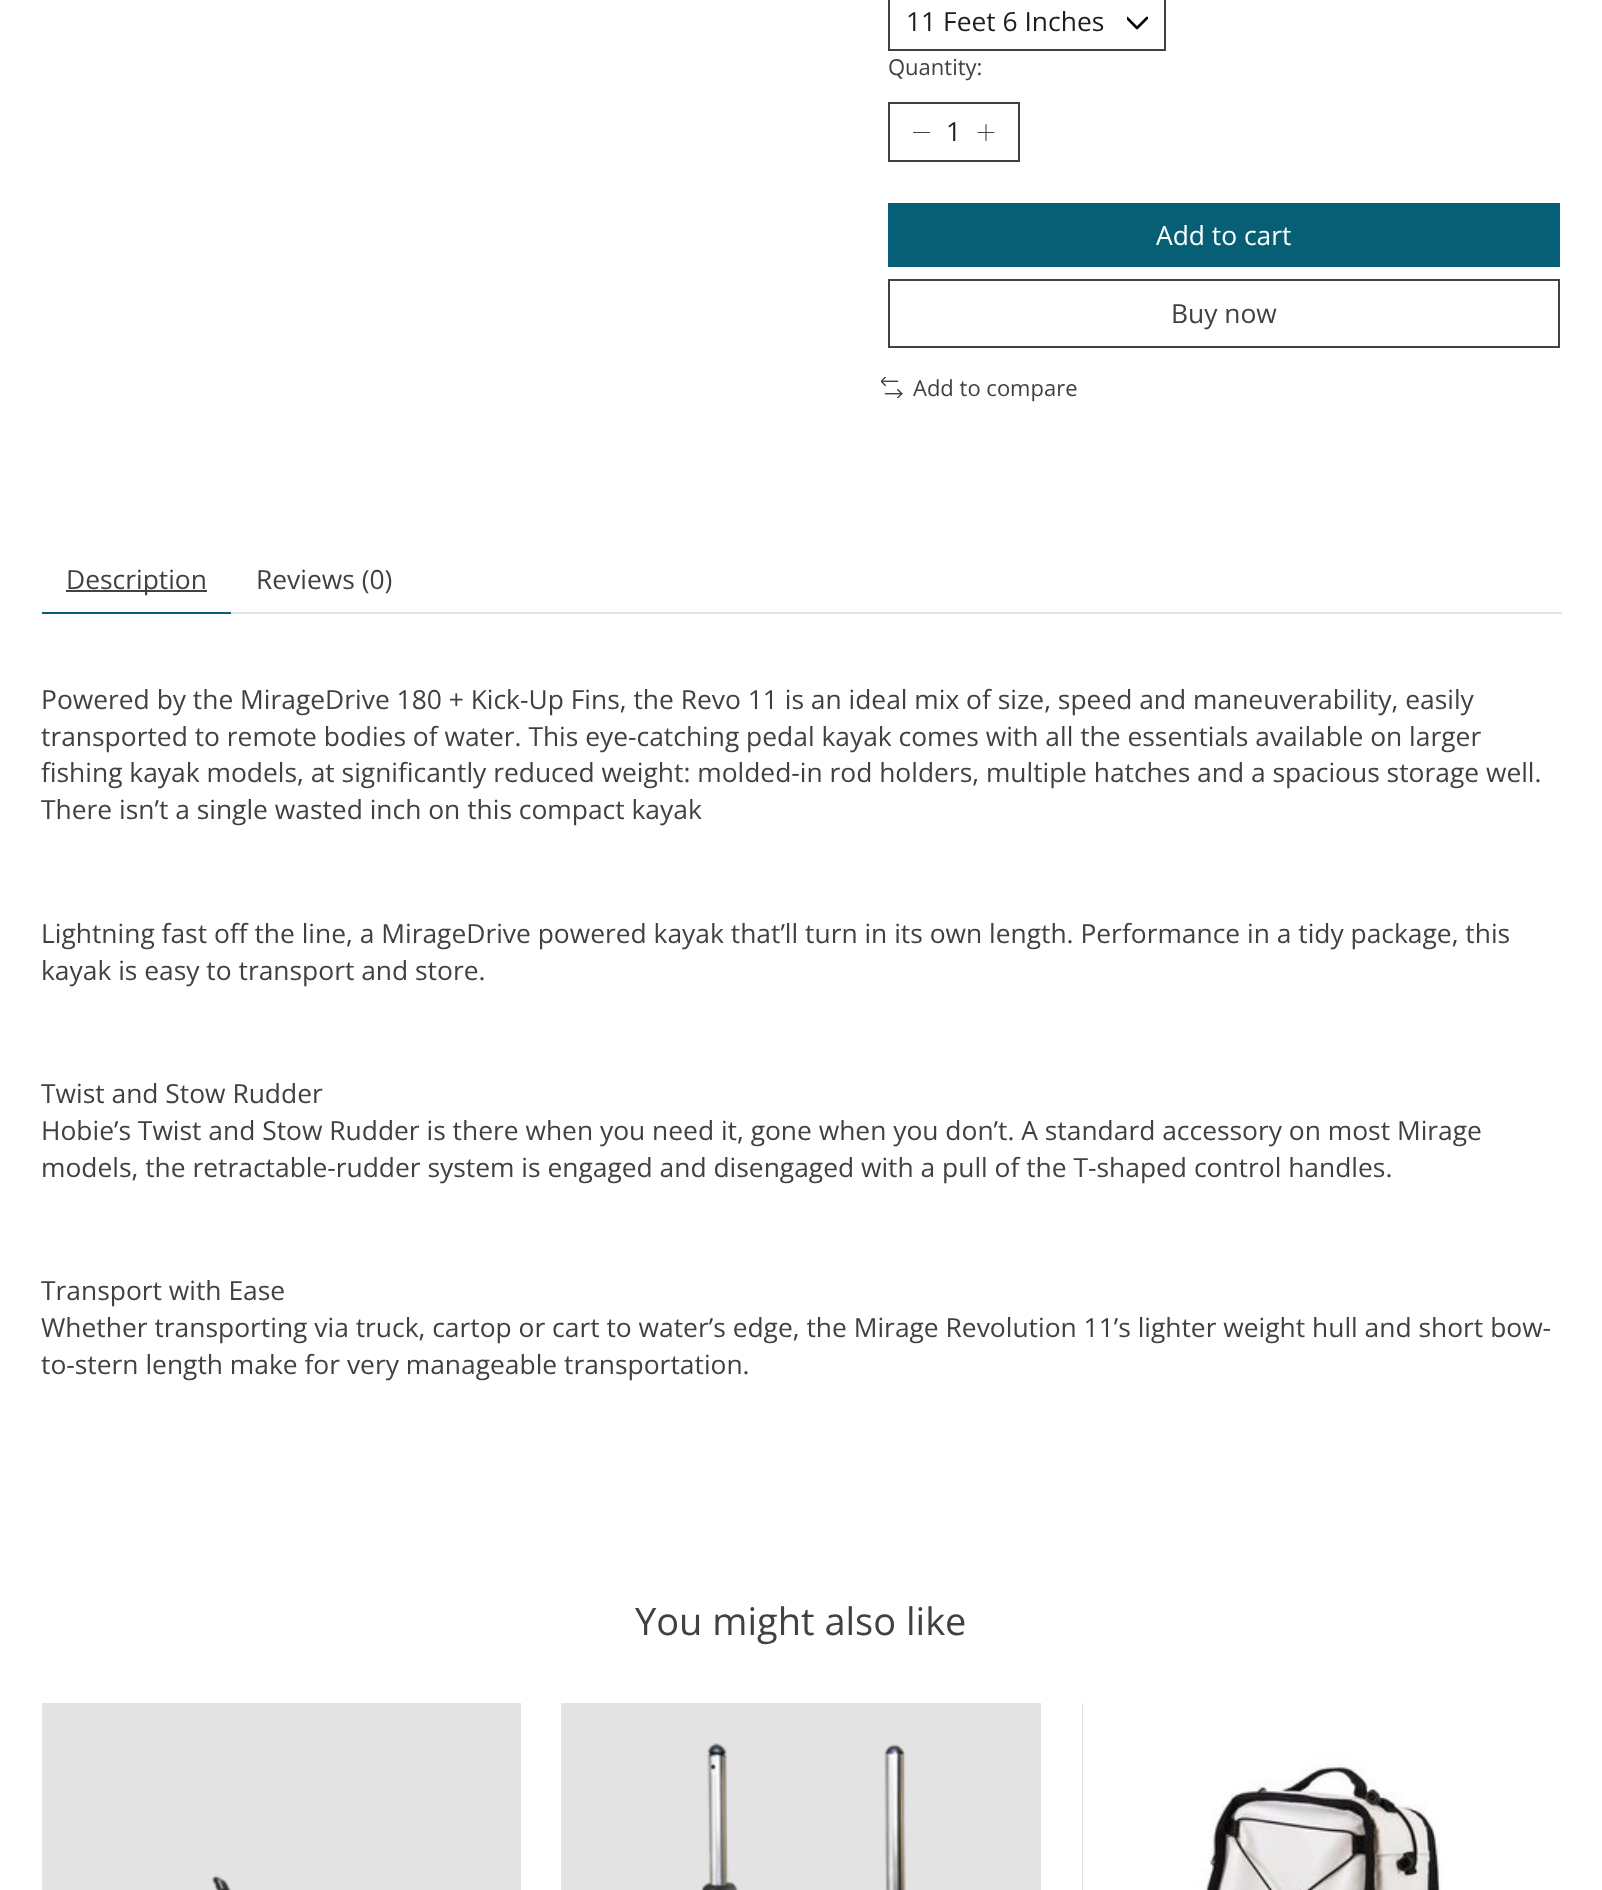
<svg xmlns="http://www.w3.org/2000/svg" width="1602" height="1890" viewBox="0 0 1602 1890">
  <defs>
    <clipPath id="clip1"><rect x="1127" y="12" width="21" height="21"/></clipPath>
  </defs>
  <rect width="100%" height="100%" fill="rgb(255,255,255)"/>
  <g clip-path="url(#clip1)">
    <path d="M1147 18L1137 28L1127 18" fill="none" stroke="rgb(0,0,0)" stroke-width="2.6" stroke-linecap="round" stroke-linejoin="round"/>
  </g>
  <rect x="889" y="-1" width="276" height="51" fill="none" stroke="rgb(65,65,65)" stroke-width="2"/>
  <text x="906" y="31" font-family="Open Sans" font-size="26.4" fill="rgb(28,28,33)">11 Feet 6 Inches</text>
  <text x="888" y="75" font-family="Open Sans" font-size="22" fill="rgb(65,65,65)">Quantity:</text>
  <rect x="889" y="103" width="130" height="58" fill="none" stroke="rgb(65,65,65)" stroke-width="2"/>
  <path d="M913.5 132.5H929.5" fill="none" stroke="rgb(65,65,65)" stroke-width="1.1" stroke-linecap="round" stroke-linejoin="round"/>
  <text x="946" y="141" font-family="Open Sans" font-size="26.4" fill="rgb(28,28,33)">1</text>
  <path d="M986 124.5V140.5M978 132.5H994" fill="none" stroke="rgb(65,65,65)" stroke-width="1.1" stroke-linecap="round" stroke-linejoin="round"/>
  <rect x="888" y="203" width="672" height="64" fill="rgb(6,95,117)"/>
  <text x="1156" y="245" font-family="Open Sans" font-size="26.4" fill="rgb(255,255,255)">Add to cart</text>
  <rect x="889" y="280" width="670" height="67" fill="none" stroke="rgb(65,65,65)" stroke-width="2"/>
  <text x="1171" y="323" font-family="Open Sans" font-size="26.4" fill="rgb(65,65,65)">Buy now</text>
  <image x="881" y="377" width="22" height="21" href="pic1.png"/>
  <text x="913" y="396" font-family="Open Sans" font-size="22" fill="rgb(65,65,65)">Add to compare</text>
  <rect x="42" y="612" width="189" height="2" fill="rgb(6,95,117)"/>
  <rect x="66" y="590" width="141" height="2" fill="rgb(65,65,65)"/>
  <g font-family="Open Sans" font-size="26.4" fill="rgb(65,65,65)">
    <text x="66" y="589">Description</text>
    <text x="256" y="589">Reviews (0)</text>
  </g>
  <rect x="231" y="612" width="1331" height="2" fill="rgb(227,227,227)"/>
  <g font-family="Open Sans" font-size="26.4" fill="rgb(65,65,65)">
    <text>
      <tspan x="41" y="709">Powered by the MirageDrive 180 + Kick-Up Fins, the Revo 11 is an ideal mix of size, speed and maneuverability, easily</tspan>
      <tspan x="41" y="746">transported to remote bodies of water. This eye-catching pedal kayak comes with all the essentials available on larger</tspan>
      <tspan x="41" y="782">fishing kayak models, at significantly reduced weight: molded-in rod holders, multiple hatches and a spacious storage well.</tspan>
      <tspan x="41" y="819">There isn’t a single wasted inch on this compact kayak</tspan>
    </text>
    <text>
      <tspan x="41" y="943">Lightning fast off the line, a MirageDrive powered kayak that’ll turn in its own length. Performance in a tidy package, this</tspan>
      <tspan x="41" y="980">kayak is easy to transport and store.</tspan>
    </text>
    <text>
      <tspan x="41" y="1103">Twist and Stow Rudder</tspan>
      <tspan x="41" y="1140">Hobie’s Twist and Stow Rudder is there when you need it, gone when you don’t. A standard accessory on most Mirage</tspan>
      <tspan x="41" y="1177">models, the retractable-rudder system is engaged and disengaged with a pull of the T-shaped control handles.</tspan>
    </text>
    <text>
      <tspan x="41" y="1300">Transport with Ease</tspan>
      <tspan x="41" y="1337">Whether transporting via truck, cartop or cart to water’s edge, the Mirage Revolution 11’s lighter weight hull and short bow-</tspan>
      <tspan x="41" y="1374">to-stern length make for very manageable transportation.</tspan>
    </text>
  </g>
  <text x="635" y="1635" font-family="Open Sans" font-size="38" fill="rgb(65,65,65)">You might also like</text>
  <rect x="42" y="1703" width="479" height="187" fill="rgb(227,227,227)"/>
  <image x="212" y="1875" width="19" height="15" href="pic2.png"/>
  <rect x="561" y="1703" width="480" height="187" fill="rgb(227,227,227)"/>
  <image x="701" y="1743" width="205" height="147" href="pic3.png"/>
  <rect x="1082" y="1703" width="1" height="187" fill="rgb(227,227,227)"/>
  <image x="1083" y="1703" width="477" height="187" href="pic4.png"/>
</svg>
